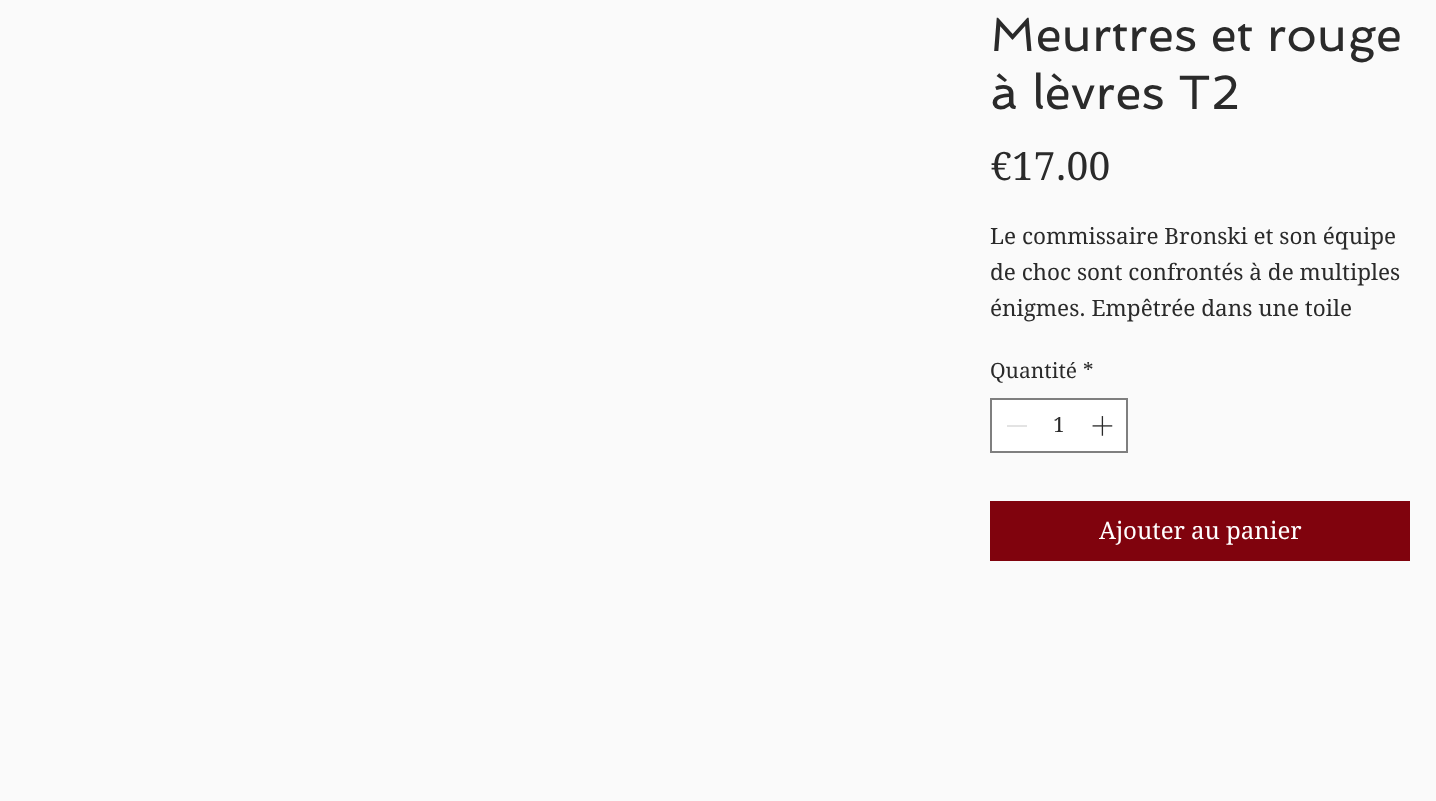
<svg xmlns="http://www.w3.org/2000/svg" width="1436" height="801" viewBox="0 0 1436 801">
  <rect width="100%" height="100%" fill="rgb(250,250,250)"/>
  <g font-family="Spinnaker" font-size="48" fill="rgb(42,42,42)">
    <text>
      <tspan x="990" y="51">Meurtres et rouge</tspan>
      <tspan x="990" y="109">à lèvres T2</tspan>
    </text>
  </g>
  <text x="990" y="180" font-family="'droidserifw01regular'" font-size="39" fill="rgb(42,42,42)">€17.00</text>
  <g font-family="'droidserifw01regular'" font-size="22.5" fill="rgb(42,42,42)">
    <text>
      <tspan x="990" y="244">Le commissaire Bronski et son équipe</tspan>
      <tspan x="990" y="280">de choc sont confrontés à de multiples</tspan>
      <tspan x="990" y="316">énigmes. Empêtrée dans une toile</tspan>
    </text>
  </g>
  <g font-family="'droidserifw01regular'" font-size="21" fill="rgb(42,42,42)">
    <text x="990" y="378">Quantité</text>
    <text x="1083" y="378">*</text>
  </g>
  <rect x="991" y="399" width="136" height="53" fill="rgb(255,255,255)" stroke="rgb(127,127,127)" stroke-width="2"/>
  <rect x="1007" y="425" width="20" height="2" fill="rgb(227,227,227)"/>
  <text x="1053" y="432" font-family="'droidserifw01regular'" font-size="21" fill="rgb(42,42,42)">1</text>
  <image x="1092" y="416" width="21" height="20" href="pic1.png"/>
  <rect x="990" y="501" width="420" height="60" fill="rgb(128,3,13)"/>
  <text x="1099" y="539" font-family="'droidserifw01regular'" font-size="24" fill="rgb(255,255,255)">Ajouter au panier</text>
</svg>
